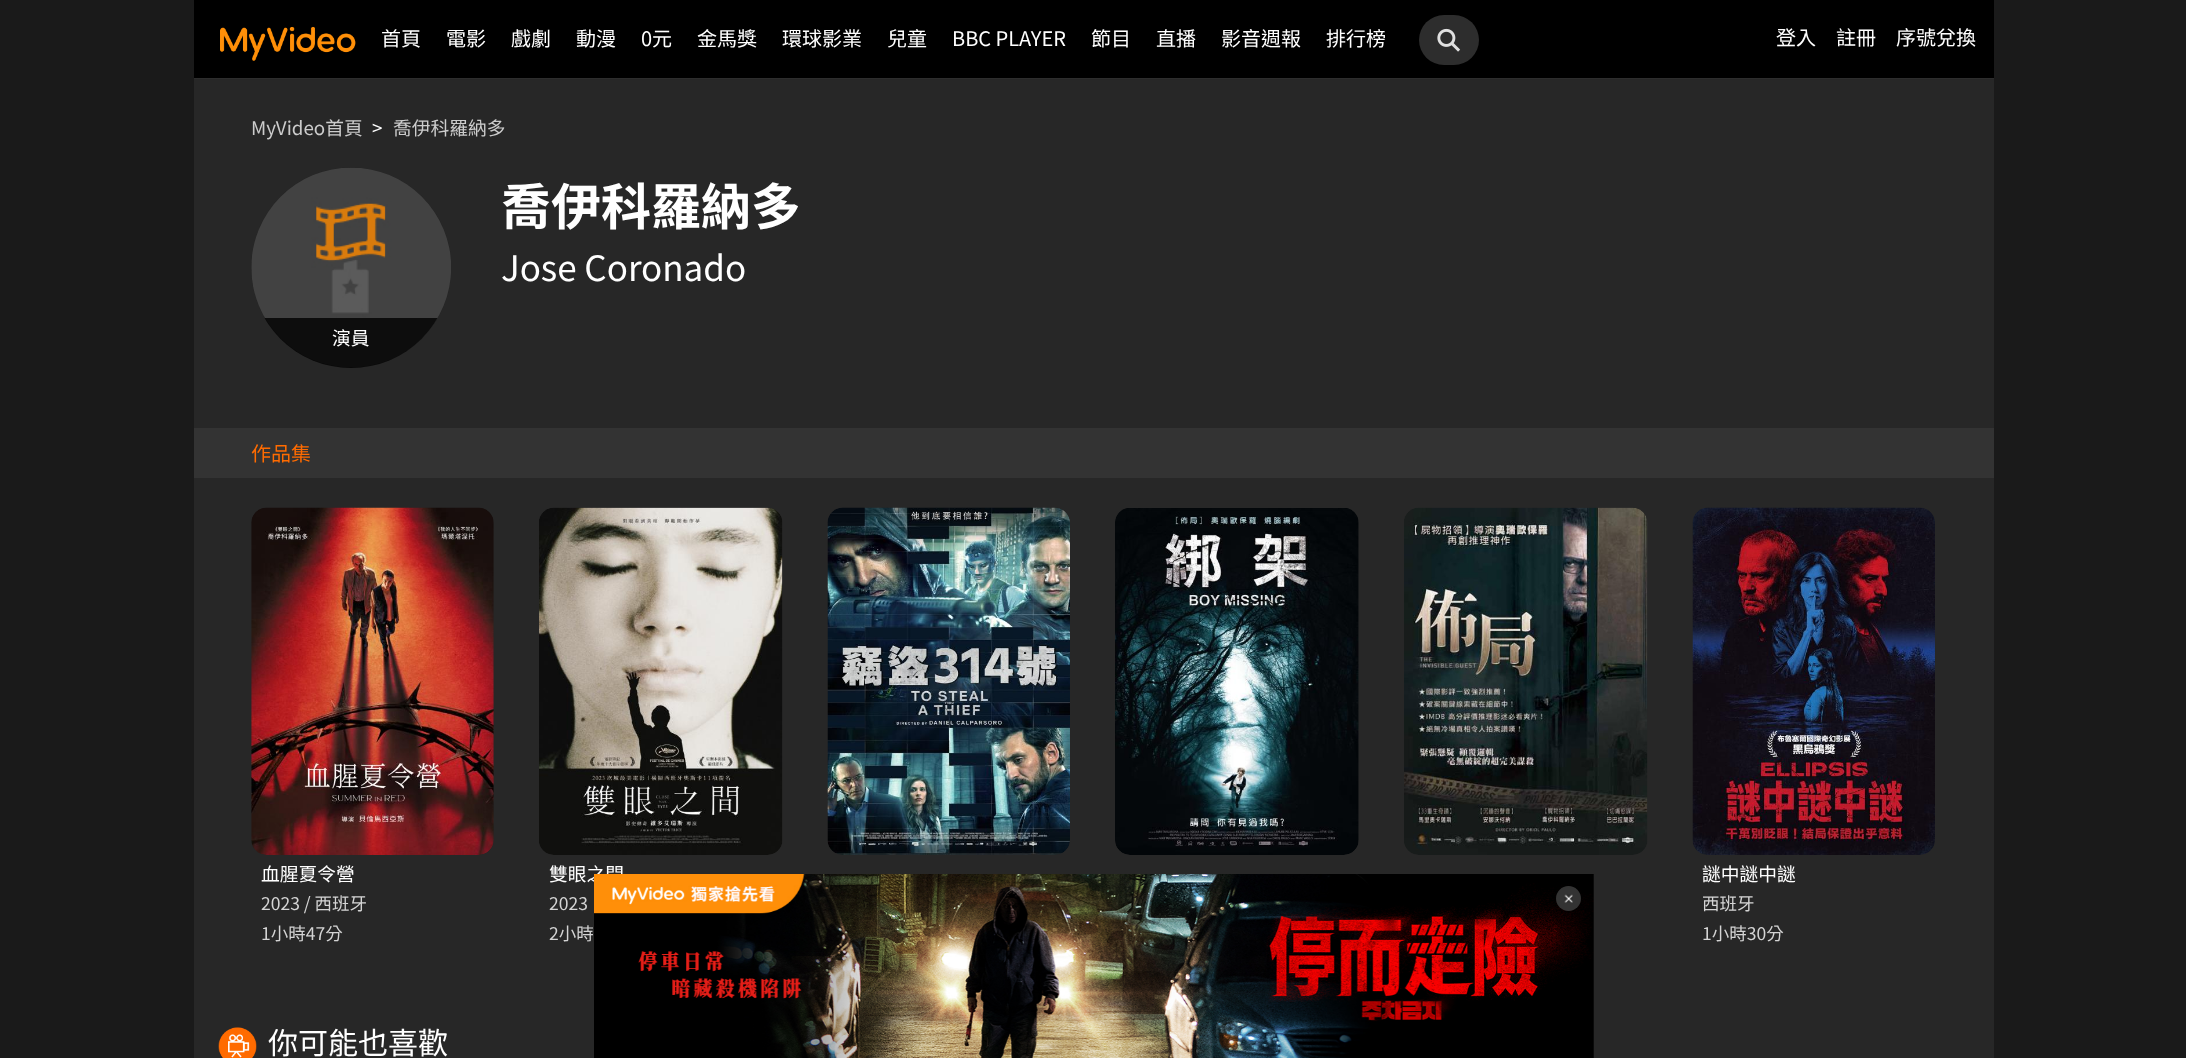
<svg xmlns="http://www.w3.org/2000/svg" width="2186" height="1058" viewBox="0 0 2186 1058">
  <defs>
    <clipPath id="clip1"><rect x="251" y="168" width="200" height="200" rx="100"/></clipPath>
  </defs>
  <rect width="100%" height="100%" fill="rgb(26,26,26)"/>
  <rect x="194" y="0" width="1800" height="78" fill="rgb(0,0,0)"/>
  <rect x="194" y="78" width="1800" height="1" fill="rgb(45,45,45)"/>
  <image x="220" y="26" width="136" height="35" href="pic1.png"/>
  <g font-family="Noto Sans TC" font-size="20" fill="rgb(255,255,255)">
    <text x="381" y="46">首頁</text>
    <text x="446" y="46">電影</text>
    <text x="511" y="46">戲劇</text>
    <text x="576" y="46">動漫</text>
    <text x="641" y="46">0元</text>
    <text x="697" y="46">金馬獎</text>
    <text x="782" y="46">環球影業</text>
    <text x="887" y="46">兒童</text>
    <text x="952" y="46">BBC PLAYER</text>
    <text x="1091" y="46">節目</text>
    <text x="1156" y="46">直播</text>
    <text x="1221" y="46">影音週報</text>
    <text x="1326" y="46">排行榜</text>
  </g>
  <rect x="1419" y="15" width="60" height="50" rx="25" fill="rgb(45,45,45)"/>
  <image x="1437" y="28" width="24" height="24" href="pic2.png"/>
  <g font-family="Noto Sans TC" font-size="20" fill="rgb(255,255,255)">
    <text x="1776" y="45">登入</text>
    <text x="1836" y="45">註冊</text>
    <text x="1896" y="45">序號兌換</text>
  </g>
  <rect x="194" y="79" width="1800" height="979" fill="rgb(39,39,39)"/>
  <text x="549" y="881" font-family="Noto Sans TC" font-size="18.75" fill="rgb(255,255,255)">雙眼之間</text>
  <image x="594" y="874" width="1000" height="184" href="pic3.png"/>
  <circle cx="1568.5" cy="898.5" r="12.5" fill="rgb(51,51,51)"/>
  <image x="1564" y="894" width="9" height="9" href="pic4.png"/>
  <text x="251" y="135" font-family="Noto Sans TC" font-size="18.75" fill="rgb(204,204,204)">MyVideo首頁</text>
  <text x="372" y="135" font-family="Noto Sans TC" font-size="18.75" fill="rgb(255,255,255)">&gt;</text>
  <text x="393" y="135" font-family="Noto Sans TC" font-size="18.75" fill="rgb(204,204,204)">喬伊科羅納多</text>
  <text x="501" y="225" font-family="Noto Sans TC" font-size="50" font-weight="bold" fill="rgb(255,255,255)">喬伊科羅納多</text>
  <text x="501" y="281" font-family="Noto Sans TC" font-size="35" fill="rgb(255,255,255)">Jose Coronado</text>
  <image x="251" y="167" width="200" height="201" href="pic5.png"/>
  <image x="251" y="167" width="200" height="201" href="pic6.png"/>
  <g clip-path="url(#clip1)">
    <rect x="264" y="318" width="174" height="50" fill="rgba(0,0,0,0.8)"/>
  </g>
  <text x="332" y="345" font-family="Noto Sans TC" font-size="18.75" fill="rgb(255,255,255)">演員</text>
  <rect x="194" y="428" width="1800" height="50" fill="rgb(51,51,51)"/>
  <text x="251" y="461" font-family="Noto Sans TC" font-size="20" fill="rgb(255,107,0)">作品集</text>
  <image x="827" y="507" width="243" height="348" href="pic7.png"/>
  <image x="1115" y="508" width="244" height="347" href="pic8.png"/>
  <image x="1404" y="507" width="244" height="348" href="pic9.png"/>
  <image x="251" y="507" width="243" height="348" href="pic10.png"/>
  <text x="261" y="881" font-family="Noto Sans TC" font-size="18.75" fill="rgb(255,255,255)">血腥夏令營</text>
  <g font-family="Noto Sans TC" font-size="17.5" fill="rgb(212,212,212)">
    <text>
      <tspan x="261" y="910">2023 / 西班牙</tspan>
      <tspan x="261" y="940">1小時47分</tspan>
    </text>
  </g>
  <image x="539" y="507" width="244" height="348" href="pic11.png"/>
  <g font-family="Noto Sans TC" font-size="17.5" fill="rgb(212,212,212)">
    <text>
      <tspan x="549" y="910">2023</tspan>
      <tspan x="549" y="940">2小時</tspan>
    </text>
  </g>
  <image x="1692" y="507" width="243" height="348" href="pic12.png"/>
  <text x="1702" y="881" font-family="Noto Sans TC" font-size="18.75" fill="rgb(255,255,255)">謎中謎中謎</text>
  <g font-family="Noto Sans TC" font-size="17.5" fill="rgb(212,212,212)">
    <text>
      <tspan x="1702" y="910">西班牙</tspan>
      <tspan x="1702" y="940">1小時30分</tspan>
    </text>
  </g>
  <image x="218" y="1027" width="39" height="31" href="pic13.png"/>
  <text x="268" y="1054" font-family="Noto Sans TC" font-size="30" fill="rgb(255,255,255)">你可能也喜歡</text>
</svg>
